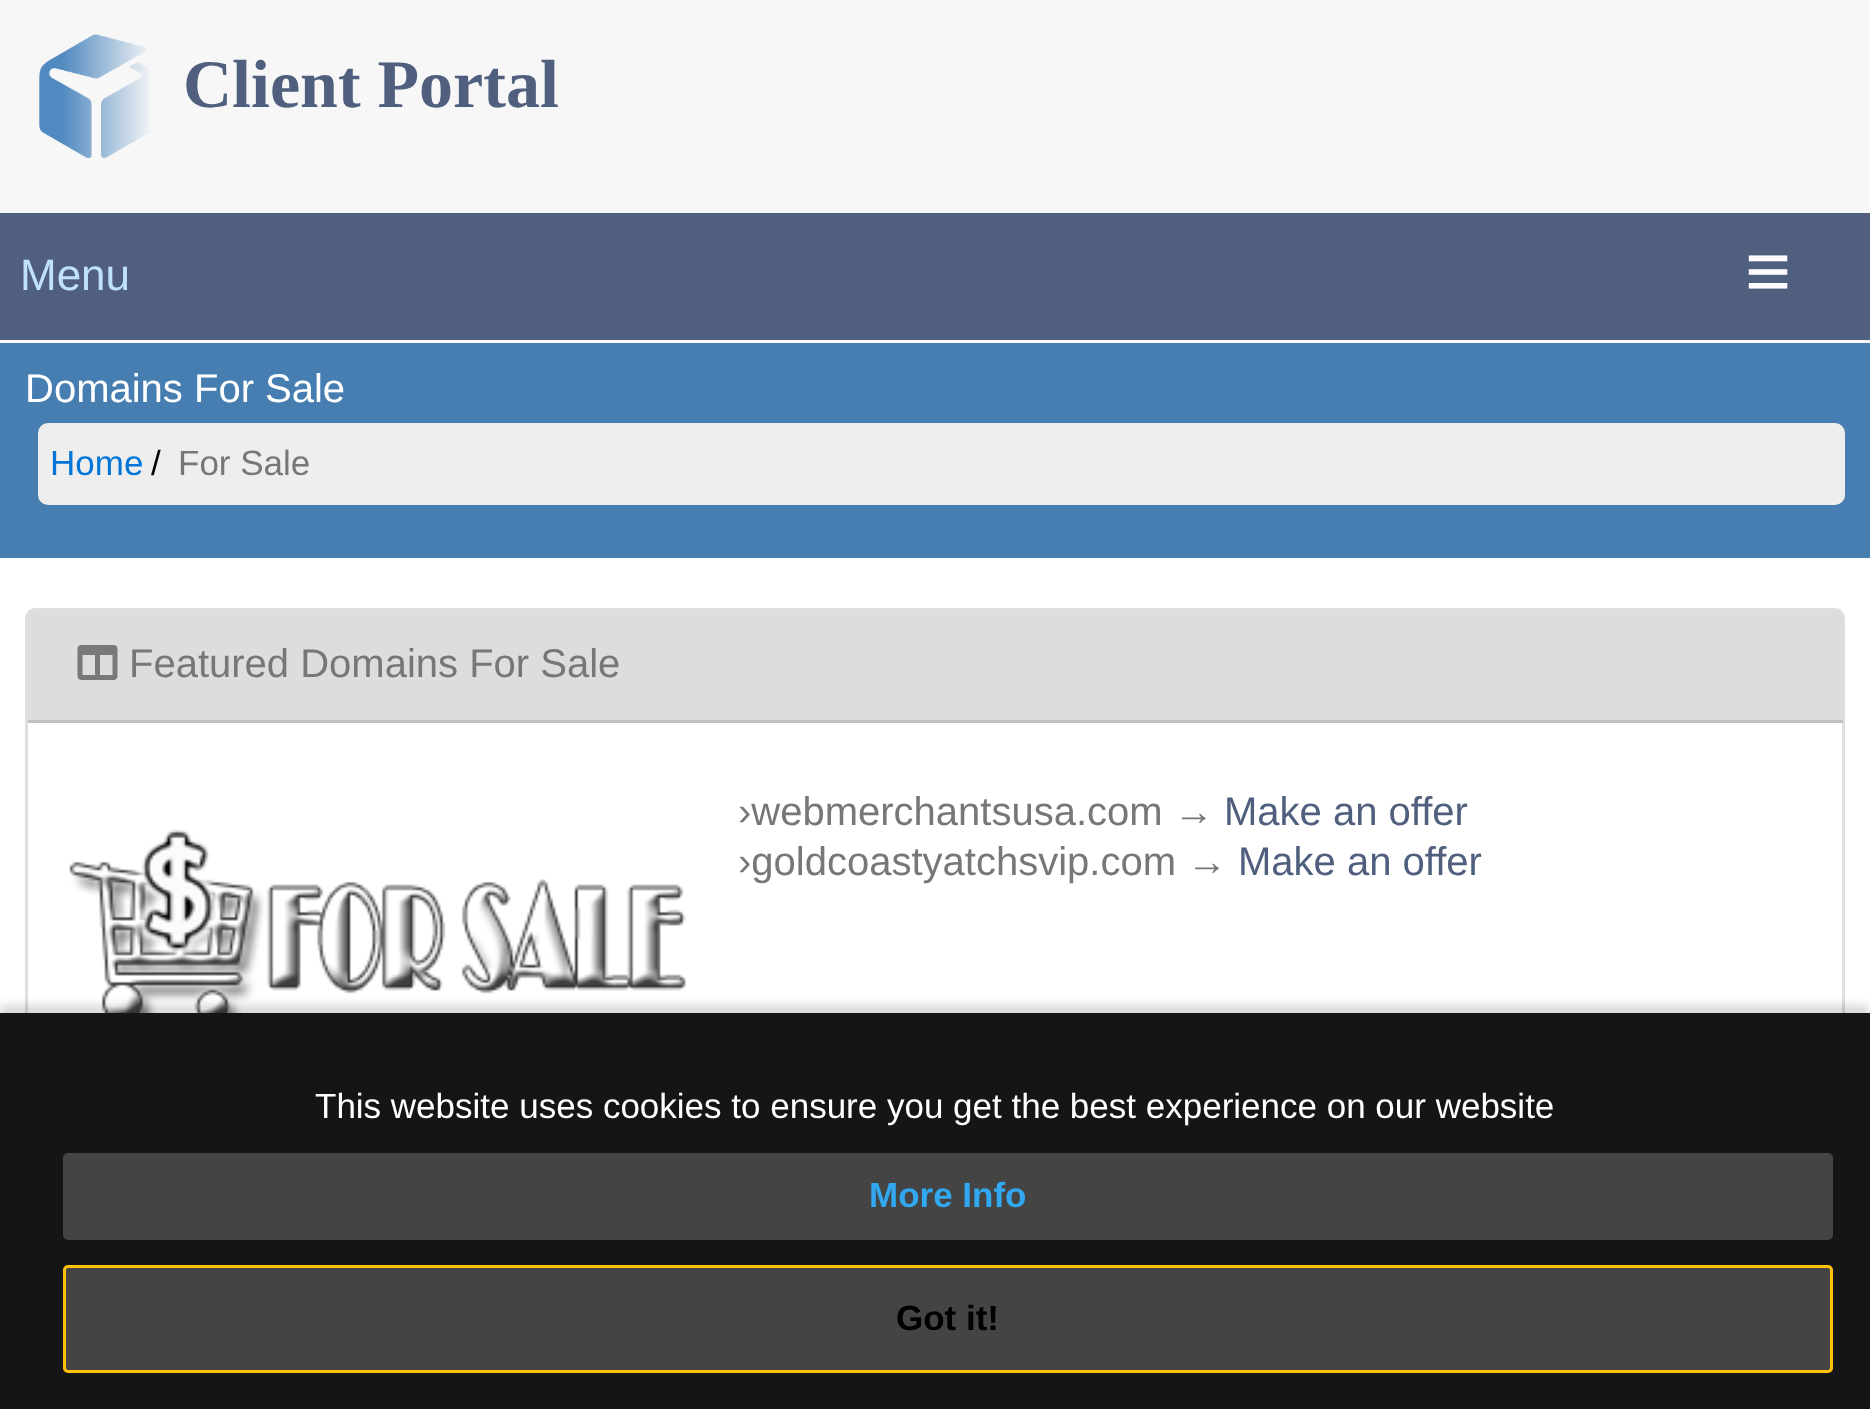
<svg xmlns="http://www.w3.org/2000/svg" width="1870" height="1409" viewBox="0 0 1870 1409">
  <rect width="100%" height="100%" fill="rgb(247,247,247)"/>
  <image x="39" y="34" width="112" height="124" href="pic1.png"/>
  <text x="183" y="107" font-family="Liberation Serif" font-size="68" font-weight="bold" fill="rgb(79,95,125)">Client Portal</text>
  <rect x="0" y="213" width="1870" height="127" fill="rgb(79,95,125)"/>
  <text x="20" y="290" font-family="Liberation Sans" font-size="44" fill="rgb(191,225,251)">Menu</text>
  <text x="1745" y="298" font-family="Liberation Sans" font-size="79" fill="rgb(255,255,255)">≡</text>
  <rect x="0" y="558" width="1870" height="455" fill="rgb(255,255,255)"/>
  <rect x="0" y="343" width="1870" height="215" fill="rgb(71,126,178)"/>
  <text x="25" y="402" font-family="Liberation Sans" font-size="40" fill="rgb(255,255,255)">Domains For Sale</text>
  <rect x="38" y="423" width="1807" height="82" rx="10" fill="rgb(238,238,238)"/>
  <text x="50" y="475" font-family="Liberation Sans" font-size="35" fill="rgb(2,117,216)">Home</text>
  <text x="151" y="475" font-family="Liberation Sans" font-size="35" fill="rgb(0,0,0)">/</text>
  <text x="178" y="475" font-family="Liberation Sans" font-size="35" fill="rgb(119,119,119)">For Sale</text>
  <rect x="26.5" y="609.5" width="1817" height="454" rx="8.5" fill="none" stroke="rgb(223,223,223)" stroke-width="3"/>
  <path d="M36 610H1835C1839.5 610 1843 613.5 1843 618V723H28V618C28 613.5 31.5 610 36 610Z" fill="rgb(221,221,221)"/>
  <rect x="28" y="720" width="1815" height="3" fill="rgb(193,193,193)"/>
  <image x="77" y="645" width="41" height="35" href="pic2.png"/>
  <text x="129" y="677" font-family="Liberation Sans" font-size="40" fill="rgb(119,119,119)">Featured Domains For Sale</text>
  <image x="69" y="829" width="617" height="184" href="pic3.png"/>
  <text x="738" y="825" font-family="Liberation Sans" font-size="40" fill="rgb(119,119,119)">›webmerchantsusa.com →</text>
  <text x="1224" y="825" font-family="Liberation Sans" font-size="40" fill="rgb(79,95,125)">Make an offer</text>
  <text x="738" y="875" font-family="Liberation Sans" font-size="40" fill="rgb(119,119,119)">›goldcoastyatchsvip.com →</text>
  <text x="1238" y="875" font-family="Liberation Sans" font-size="40" fill="rgb(79,95,125)">Make an offer</text>
  <rect x="0" y="1005" width="1870" height="398" fill="rgba(0,0,0,0.15)" filter="blur(4px)"/>
  <rect x="0" y="1013" width="1870" height="396" fill="rgb(21,21,21)"/>
  <text x="315" y="1118" font-family="Liberation Sans" font-size="35" fill="rgb(255,255,255)">This website uses cookies to ensure you get the best experience on our website</text>
  <rect x="63" y="1153" width="1770" height="87" rx="5" fill="rgb(68,68,68)"/>
  <text x="869" y="1207" font-family="Liberation Sans" font-size="35" font-weight="bold" fill="rgb(49,168,240)">More Info</text>
  <rect x="64.5" y="1266.5" width="1767" height="105" rx="3.5" fill="rgb(68,68,68)" stroke="rgb(255,193,7)" stroke-width="3"/>
  <text x="896" y="1330" font-family="Liberation Sans" font-size="35" font-weight="bold" fill="rgb(0,0,0)">Got it!</text>
</svg>
